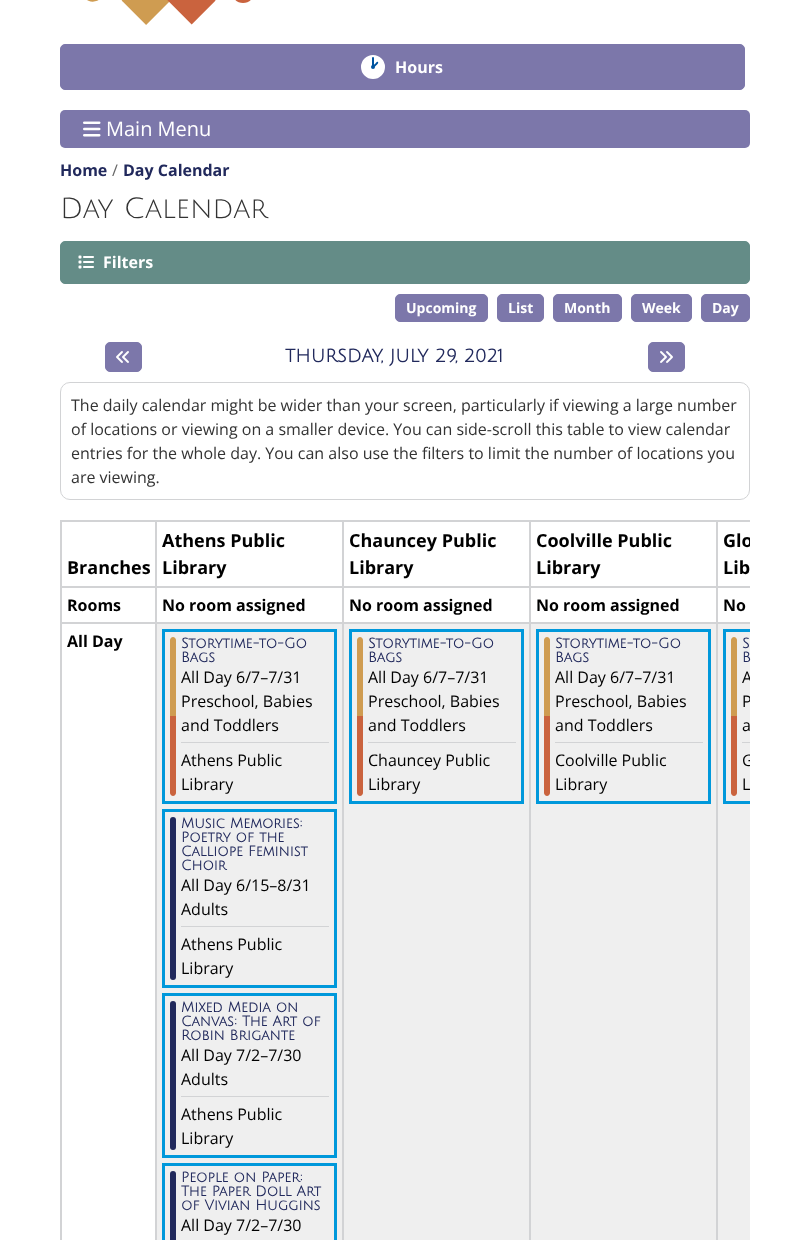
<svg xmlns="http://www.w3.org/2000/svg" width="809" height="1240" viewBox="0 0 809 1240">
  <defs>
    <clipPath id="clip1"><rect x="62" y="522" width="688" height="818"/></clipPath>
  </defs>
  <rect width="100%" height="100%" fill="rgb(255,255,255)"/>
  <image x="87" y="0" width="164" height="25" href="pic1.png"/>
  <rect x="60.5" y="44.5" width="684" height="45" rx="4.5" fill="rgb(124,119,170)" stroke="rgb(124,119,170)"/>
  <circle cx="373" cy="67" r="7" fill="rgb(0,84,159)" stroke="rgb(255,255,255)" stroke-width="10"/>
  <rect x="372" y="57" width="2" height="10" rx="1" fill="rgb(0,84,159)"/>
  <path d="M378 62C379 63 377 64.5 376 65.5C375.5 66 374 68 373 67C372 66 374 64.5 375 64C375.5 63.5 377 61 378 62Z" fill="rgb(0,84,159)"/>
  <text x="395" y="73" font-family="Open Sans" font-size="16" font-weight="bold" fill="rgb(255,255,255)">Hours</text>
  <rect x="60" y="110" width="690" height="38" rx="5" fill="rgb(124,119,170)"/>
  <image x="83" y="121" width="18" height="16" href="pic2.png"/>
  <text x="106" y="136" font-family="Open Sans" font-size="20" fill="rgb(255,255,255)">Main Menu</text>
  <text x="60" y="176" font-family="Open Sans" font-size="16" font-weight="bold" fill="rgb(33,41,92)">Home</text>
  <text x="112" y="176" font-family="Open Sans" font-size="16" fill="rgb(102,102,102)">/</text>
  <text x="123" y="176" font-family="Open Sans" font-size="16" font-weight="bold" fill="rgb(33,41,92)">Day Calendar</text>
  <text x="60" y="218" font-family="Julius Sans One" font-size="28.5" fill="rgb(51,51,51)">Day Calendar</text>
  <rect x="60.5" y="241.5" width="689" height="42" rx="4.5" fill="rgb(100,140,135)" stroke="rgb(100,140,135)"/>
  <image x="78" y="255" width="16" height="14" href="pic3.png"/>
  <text x="103" y="268" font-family="Open Sans" font-size="16" font-weight="bold" fill="rgb(255,255,255)">Filters</text>
  <rect x="395.5" y="294.5" width="92" height="27" rx="4.5" fill="rgb(124,119,170)" stroke="rgb(124,119,170)"/>
  <text x="406" y="313" font-family="Open Sans" font-size="14" font-weight="bold" fill="rgb(255,255,255)">Upcoming</text>
  <rect x="497.5" y="294.5" width="46" height="27" rx="4.5" fill="rgb(124,119,170)" stroke="rgb(124,119,170)"/>
  <text x="508" y="313" font-family="Open Sans" font-size="14" font-weight="bold" fill="rgb(255,255,255)">List</text>
  <rect x="553.5" y="294.5" width="68" height="27" rx="4.5" fill="rgb(124,119,170)" stroke="rgb(124,119,170)"/>
  <text x="564" y="313" font-family="Open Sans" font-size="14" font-weight="bold" fill="rgb(255,255,255)">Month</text>
  <rect x="631.5" y="294.5" width="60" height="27" rx="4.5" fill="rgb(124,119,170)" stroke="rgb(124,119,170)"/>
  <text x="642" y="313" font-family="Open Sans" font-size="14" font-weight="bold" fill="rgb(255,255,255)">Week</text>
  <rect x="701.5" y="294.5" width="48" height="27" rx="4.5" fill="rgb(124,119,170)" stroke="rgb(124,119,170)"/>
  <text x="712" y="313" font-family="Open Sans" font-size="14" font-weight="bold" fill="rgb(255,255,255)">Day</text>
  <rect x="105.5" y="342.5" width="36" height="29" rx="4.5" fill="rgb(124,119,170)" stroke="rgb(124,119,170)"/>
  <image x="116" y="351" width="13" height="12" href="pic4.png"/>
  <text x="285" y="362" font-family="Julius Sans One" font-size="18" font-weight="bold" fill="rgb(33,41,92)">THURSDAY, JULY 29, 2021</text>
  <rect x="648.5" y="342.5" width="36" height="29" rx="4.5" fill="rgb(124,119,170)" stroke="rgb(124,119,170)"/>
  <image x="660" y="351" width="13" height="12" href="pic5.png"/>
  <rect x="60.5" y="382.5" width="689" height="117" rx="9.5" fill="none" stroke="rgb(210,211,213)"/>
  <g font-family="Open Sans" font-size="16" fill="rgb(51,51,51)">
    <text>
      <tspan x="71" y="411">The daily calendar might be wider than your screen, particularly if viewing a large number</tspan>
      <tspan x="71" y="435">of locations or viewing on a smaller device. You can side-scroll this table to view calendar</tspan>
      <tspan x="71" y="459">entries for the whole day. You can also use the filters to limit the number of locations you</tspan>
      <tspan x="71" y="483">are viewing.</tspan>
    </text>
  </g>
  <rect x="60" y="520" width="690" height="2" fill="rgb(210,211,213)"/>
  <rect x="60" y="520" width="2" height="720" fill="rgb(210,211,213)"/>
  <rect x="155" y="522" width="2" height="718" fill="rgb(210,211,213)"/>
  <rect x="62" y="586" width="95" height="2" fill="rgb(210,211,213)"/>
  <text x="67" y="574" font-family="Open Sans" font-size="18" font-weight="bold" fill="rgb(0,0,0)">Branches</text>
  <rect x="342" y="522" width="2" height="718" fill="rgb(210,211,213)"/>
  <rect x="157" y="586" width="187" height="2" fill="rgb(210,211,213)"/>
  <g font-family="Open Sans" font-size="18" font-weight="bold" fill="rgb(0,0,0)">
    <text>
      <tspan x="162" y="547">Athens Public</tspan>
      <tspan x="162" y="574">Library</tspan>
    </text>
  </g>
  <rect x="529" y="522" width="2" height="718" fill="rgb(210,211,213)"/>
  <rect x="344" y="586" width="187" height="2" fill="rgb(210,211,213)"/>
  <g font-family="Open Sans" font-size="18" font-weight="bold" fill="rgb(0,0,0)">
    <text>
      <tspan x="349" y="547">Chauncey Public</tspan>
      <tspan x="349" y="574">Library</tspan>
    </text>
  </g>
  <rect x="716" y="522" width="2" height="718" fill="rgb(210,211,213)"/>
  <rect x="531" y="586" width="219" height="2" fill="rgb(210,211,213)"/>
  <g font-family="Open Sans" font-size="18" font-weight="bold" fill="rgb(0,0,0)">
    <text>
      <tspan x="536" y="547">Coolville Public</tspan>
      <tspan x="536" y="574">Library</tspan>
    </text>
  </g>
  <g clip-path="url(#clip1)">
    <text x="723" y="547" font-family="Open Sans" font-size="18" font-weight="bold" fill="rgb(0,0,0)">Glo</text>
  </g>
  <text x="723" y="574" font-family="Open Sans" font-size="18" font-weight="bold" fill="rgb(0,0,0)">Lib</text>
  <text x="67" y="611" font-family="Open Sans" font-size="16" font-weight="bold" fill="rgb(0,0,0)">Rooms</text>
  <rect x="62" y="622" width="688" height="2" fill="rgb(210,211,213)"/>
  <g font-family="Open Sans" font-size="16" font-weight="bold" fill="rgb(0,0,0)">
    <text x="162" y="611">No room assigned</text>
    <text x="349" y="611">No room assigned</text>
    <text x="536" y="611">No room assigned</text>
    <text x="723" y="611">No</text>
    <text x="67" y="647">All Day</text>
  </g>
  <rect x="157" y="624" width="185" height="616" fill="rgb(239,239,239)"/>
  <rect x="163.5" y="630.5" width="172" height="172" fill="none" stroke="rgb(0,152,219)" stroke-width="3"/>
  <path d="M173 637C174.5 637 176 638.5 176 640V716H170V640C170 638.5 171.5 637 173 637Z" fill="rgb(207,156,81)"/>
  <path d="M170 716H176V793C176 794.5 174.5 796 173 796C171.5 796 170 794.5 170 793Z" fill="rgb(202,99,62)"/>
  <g font-family="Julius Sans One" font-size="14" font-weight="bold" fill="rgb(33,41,92)">
    <text>
      <tspan x="181" y="648">Storytime-to-Go</tspan>
      <tspan x="181" y="662">Bags</tspan>
    </text>
  </g>
  <g font-family="Open Sans" font-size="16" fill="rgb(0,0,0)">
    <text>
      <tspan x="181" y="683">All Day 6/7–7/31</tspan>
      <tspan x="181" y="707">Preschool, Babies</tspan>
      <tspan x="181" y="731">and Toddlers</tspan>
    </text>
  </g>
  <rect x="181" y="742" width="148" height="1" fill="rgb(210,211,213)"/>
  <g font-family="Open Sans" font-size="16" fill="rgb(0,0,0)">
    <text>
      <tspan x="181" y="766">Athens Public</tspan>
      <tspan x="181" y="790">Library</tspan>
    </text>
  </g>
  <rect x="163.5" y="810.5" width="172" height="176" fill="none" stroke="rgb(0,152,219)" stroke-width="3"/>
  <rect x="170" y="817" width="6" height="163" rx="3" fill="rgb(33,41,92)"/>
  <g font-family="Julius Sans One" font-size="14" font-weight="bold" fill="rgb(33,41,92)">
    <text>
      <tspan x="181" y="828">Music Memories:</tspan>
      <tspan x="181" y="842">Poetry of the</tspan>
      <tspan x="181" y="856">Calliope Feminist</tspan>
      <tspan x="181" y="870">Choir</tspan>
    </text>
  </g>
  <g font-family="Open Sans" font-size="16" fill="rgb(0,0,0)">
    <text>
      <tspan x="181" y="891">All Day 6/15–8/31</tspan>
      <tspan x="181" y="915">Adults</tspan>
    </text>
  </g>
  <rect x="181" y="926" width="148" height="1" fill="rgb(210,211,213)"/>
  <g font-family="Open Sans" font-size="16" fill="rgb(0,0,0)">
    <text>
      <tspan x="181" y="950">Athens Public</tspan>
      <tspan x="181" y="974">Library</tspan>
    </text>
  </g>
  <rect x="163.5" y="994.5" width="172" height="162" fill="none" stroke="rgb(0,152,219)" stroke-width="3"/>
  <rect x="170" y="1001" width="6" height="149" rx="3" fill="rgb(33,41,92)"/>
  <g font-family="Julius Sans One" font-size="14" font-weight="bold" fill="rgb(33,41,92)">
    <text>
      <tspan x="181" y="1012">Mixed Media on</tspan>
      <tspan x="181" y="1026">Canvas: The Art of</tspan>
      <tspan x="181" y="1040">Robin Brigante</tspan>
    </text>
  </g>
  <g font-family="Open Sans" font-size="16" fill="rgb(0,0,0)">
    <text>
      <tspan x="181" y="1061">All Day 7/2–7/30</tspan>
      <tspan x="181" y="1085">Adults</tspan>
    </text>
  </g>
  <rect x="181" y="1096" width="148" height="1" fill="rgb(210,211,213)"/>
  <g font-family="Open Sans" font-size="16" fill="rgb(0,0,0)">
    <text>
      <tspan x="181" y="1120">Athens Public</tspan>
      <tspan x="181" y="1144">Library</tspan>
    </text>
  </g>
  <rect x="163.5" y="1164.5" width="172" height="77" fill="none" stroke="rgb(0,152,219)" stroke-width="3"/>
  <rect x="170" y="1171" width="6" height="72" rx="3" fill="rgb(33,41,92)"/>
  <g font-family="Julius Sans One" font-size="14" font-weight="bold" fill="rgb(33,41,92)">
    <text>
      <tspan x="181" y="1182">People on Paper:</tspan>
      <tspan x="181" y="1196">The Paper Doll Art</tspan>
      <tspan x="181" y="1210">of Vivian Huggins</tspan>
    </text>
  </g>
  <text x="181" y="1231" font-family="Open Sans" font-size="16" fill="rgb(0,0,0)">All Day 7/2–7/30</text>
  <rect x="344" y="624" width="185" height="616" fill="rgb(239,239,239)"/>
  <rect x="350.5" y="630.5" width="172" height="172" fill="none" stroke="rgb(0,152,219)" stroke-width="3"/>
  <path d="M360 637C361.5 637 363 638.5 363 640V716H357V640C357 638.5 358.5 637 360 637Z" fill="rgb(207,156,81)"/>
  <path d="M357 716H363V793C363 794.5 361.5 796 360 796C358.5 796 357 794.5 357 793Z" fill="rgb(202,99,62)"/>
  <g font-family="Julius Sans One" font-size="14" font-weight="bold" fill="rgb(33,41,92)">
    <text>
      <tspan x="368" y="648">Storytime-to-Go</tspan>
      <tspan x="368" y="662">Bags</tspan>
    </text>
  </g>
  <g font-family="Open Sans" font-size="16" fill="rgb(0,0,0)">
    <text>
      <tspan x="368" y="683">All Day 6/7–7/31</tspan>
      <tspan x="368" y="707">Preschool, Babies</tspan>
      <tspan x="368" y="731">and Toddlers</tspan>
    </text>
  </g>
  <rect x="368" y="742" width="148" height="1" fill="rgb(210,211,213)"/>
  <g font-family="Open Sans" font-size="16" fill="rgb(0,0,0)">
    <text>
      <tspan x="368" y="766">Chauncey Public</tspan>
      <tspan x="368" y="790">Library</tspan>
    </text>
  </g>
  <rect x="531" y="624" width="185" height="616" fill="rgb(239,239,239)"/>
  <rect x="537.5" y="630.5" width="172" height="172" fill="none" stroke="rgb(0,152,219)" stroke-width="3"/>
  <path d="M547 637C548.5 637 550 638.5 550 640V716H544V640C544 638.5 545.5 637 547 637Z" fill="rgb(207,156,81)"/>
  <path d="M544 716H550V793C550 794.5 548.5 796 547 796C545.5 796 544 794.5 544 793Z" fill="rgb(202,99,62)"/>
  <g font-family="Julius Sans One" font-size="14" font-weight="bold" fill="rgb(33,41,92)">
    <text>
      <tspan x="555" y="648">Storytime-to-Go</tspan>
      <tspan x="555" y="662">Bags</tspan>
    </text>
  </g>
  <g font-family="Open Sans" font-size="16" fill="rgb(0,0,0)">
    <text>
      <tspan x="555" y="683">All Day 6/7–7/31</tspan>
      <tspan x="555" y="707">Preschool, Babies</tspan>
      <tspan x="555" y="731">and Toddlers</tspan>
    </text>
  </g>
  <rect x="555" y="742" width="148" height="1" fill="rgb(210,211,213)"/>
  <g font-family="Open Sans" font-size="16" fill="rgb(0,0,0)">
    <text>
      <tspan x="555" y="766">Coolville Public</tspan>
      <tspan x="555" y="790">Library</tspan>
    </text>
  </g>
  <rect x="718" y="624" width="32" height="616" fill="rgb(239,239,239)"/>
  <g clip-path="url(#clip1)">
    <rect x="724.5" y="630.5" width="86" height="172" fill="none" stroke="rgb(0,152,219)" stroke-width="3"/>
  </g>
  <path d="M734 637C735.5 637 737 638.5 737 640V716H731V640C731 638.5 732.5 637 734 637Z" fill="rgb(207,156,81)"/>
  <path d="M731 716H737V793C737 794.5 735.5 796 734 796C732.5 796 731 794.5 731 793Z" fill="rgb(202,99,62)"/>
  <g font-family="Julius Sans One" font-size="14" font-weight="bold" fill="rgb(33,41,92)">
    <text>
      <tspan x="742" y="648">S</tspan>
      <tspan x="742" y="662">B</tspan>
    </text>
  </g>
  <g clip-path="url(#clip1)">
    <g font-family="Open Sans" font-size="16" fill="rgb(0,0,0)">
      <text>
        <tspan x="742" y="683">A</tspan>
        <tspan x="742" y="707">P</tspan>
      </text>
    </g>
  </g>
  <text x="742" y="731" font-family="Open Sans" font-size="16" fill="rgb(0,0,0)">a</text>
  <rect x="742" y="742" width="8" height="1" fill="rgb(210,211,213)"/>
  <g clip-path="url(#clip1)">
    <text x="742" y="766" font-family="Open Sans" font-size="16" fill="rgb(0,0,0)">G</text>
  </g>
  <text x="742" y="790" font-family="Open Sans" font-size="16" fill="rgb(0,0,0)">L</text>
</svg>
